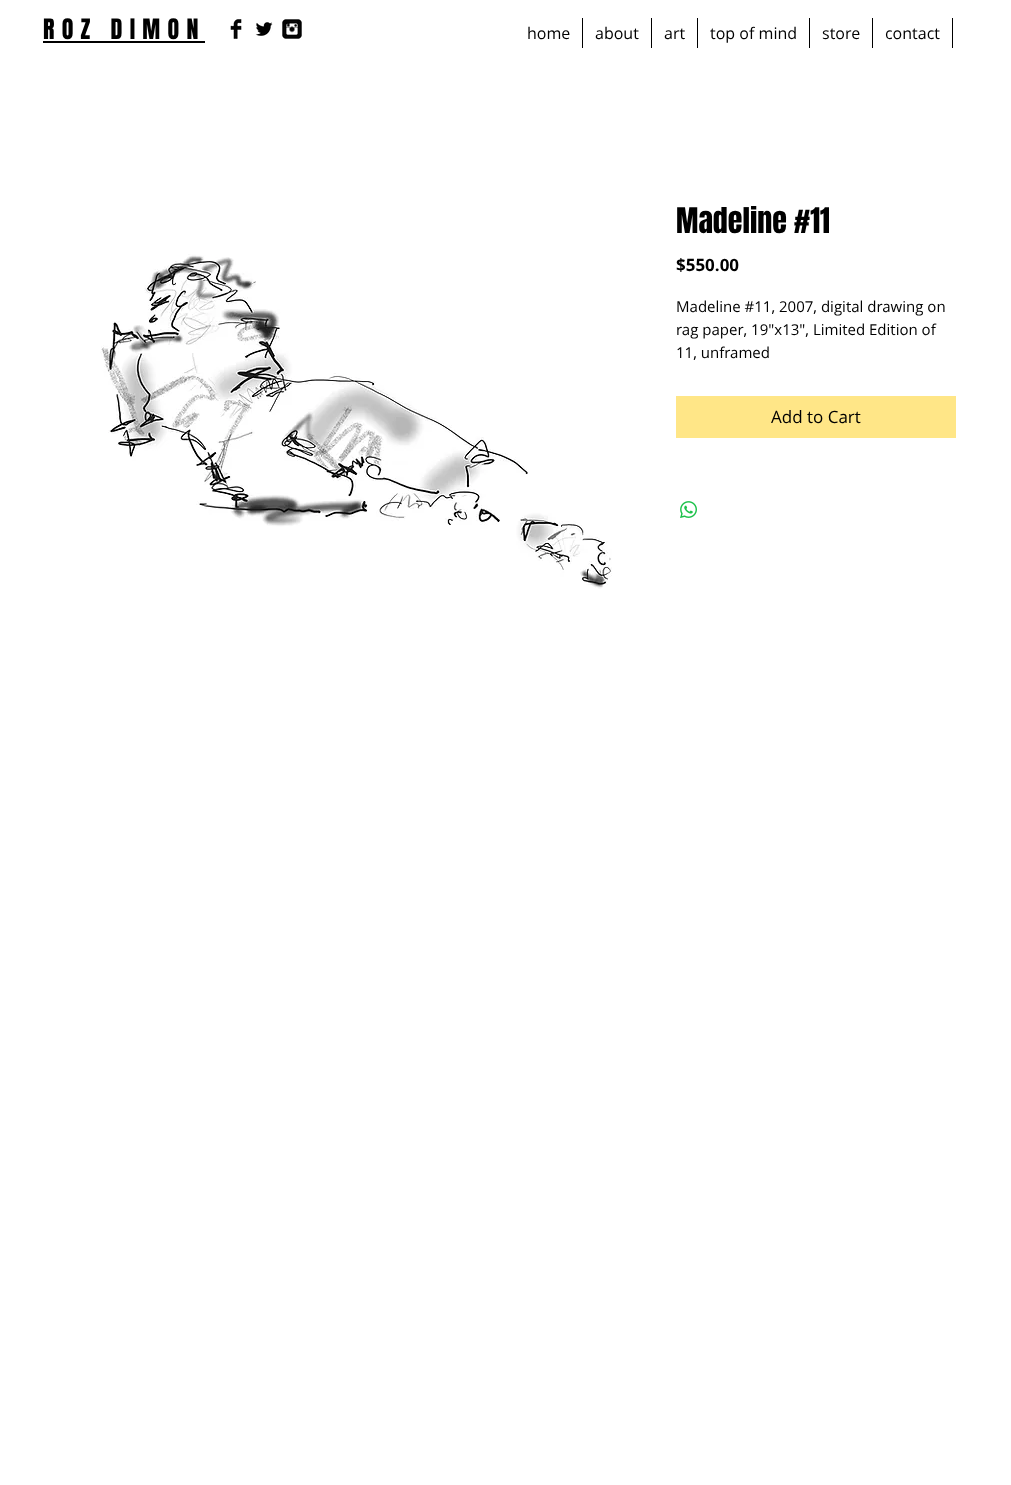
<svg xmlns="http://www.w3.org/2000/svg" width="1011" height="1485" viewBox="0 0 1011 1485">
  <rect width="100%" height="100%" fill="rgb(255,255,255)"/>
  <text x="43" y="39" font-family="Anton" font-size="24" letter-spacing="7.25" fill="rgb(0,0,0)">ROZ DIMON</text>
  <rect x="43" y="41" width="162" height="2" fill="rgb(0,0,0)"/>
  <image x="230" y="19" width="12" height="20" href="pic1.png"/>
  <image x="255" y="22" width="18" height="14" href="pic2.png"/>
  <image x="282" y="19" width="20" height="20" href="pic3.png"/>
  <text x="527" y="39" font-family="Open Sans" font-size="16" fill="rgb(0,0,0)">home</text>
  <rect x="582" y="18" width="1" height="30" fill="rgb(0,0,0)"/>
  <text x="595" y="39" font-family="Open Sans" font-size="16" fill="rgb(0,0,0)">about</text>
  <rect x="651" y="18" width="1" height="30" fill="rgb(0,0,0)"/>
  <text x="664" y="39" font-family="Open Sans" font-size="16" fill="rgb(0,0,0)">art</text>
  <rect x="697" y="18" width="1" height="30" fill="rgb(0,0,0)"/>
  <text x="710" y="39" font-family="Open Sans" font-size="16" fill="rgb(0,0,0)">top of mind</text>
  <rect x="809" y="18" width="1" height="30" fill="rgb(0,0,0)"/>
  <text x="822" y="39" font-family="Open Sans" font-size="16" fill="rgb(0,0,0)">store</text>
  <rect x="872" y="18" width="1" height="30" fill="rgb(0,0,0)"/>
  <text x="885" y="39" font-family="Open Sans" font-size="16" fill="rgb(0,0,0)">contact</text>
  <rect x="952" y="18" width="1" height="30" fill="rgb(0,0,0)"/>
  <image x="100" y="254" width="512" height="335" href="pic4.png"/>
  <text x="676" y="233" font-family="Anton" font-size="30" fill="rgb(0,0,0)">Madeline #11</text>
  <text x="676" y="271" font-family="Open Sans" font-size="17" font-weight="bold" fill="rgb(0,0,0)">$550.00</text>
  <g font-family="Open Sans" font-size="15" fill="rgb(0,0,0)">
    <text>
      <tspan x="676" y="312">Madeline #11, 2007, digital drawing on</tspan>
      <tspan x="676" y="335">rag paper, 19"x13", Limited Edition of</tspan>
      <tspan x="676" y="358">11, unframed</tspan>
    </text>
  </g>
  <rect x="676" y="396" width="280" height="42" fill="rgb(255,230,135)"/>
  <text x="771" y="423" font-family="Open Sans" font-size="17" fill="rgb(0,0,0)">Add to Cart</text>
  <image x="680" y="501" width="17" height="17" href="pic5.png"/>
</svg>
